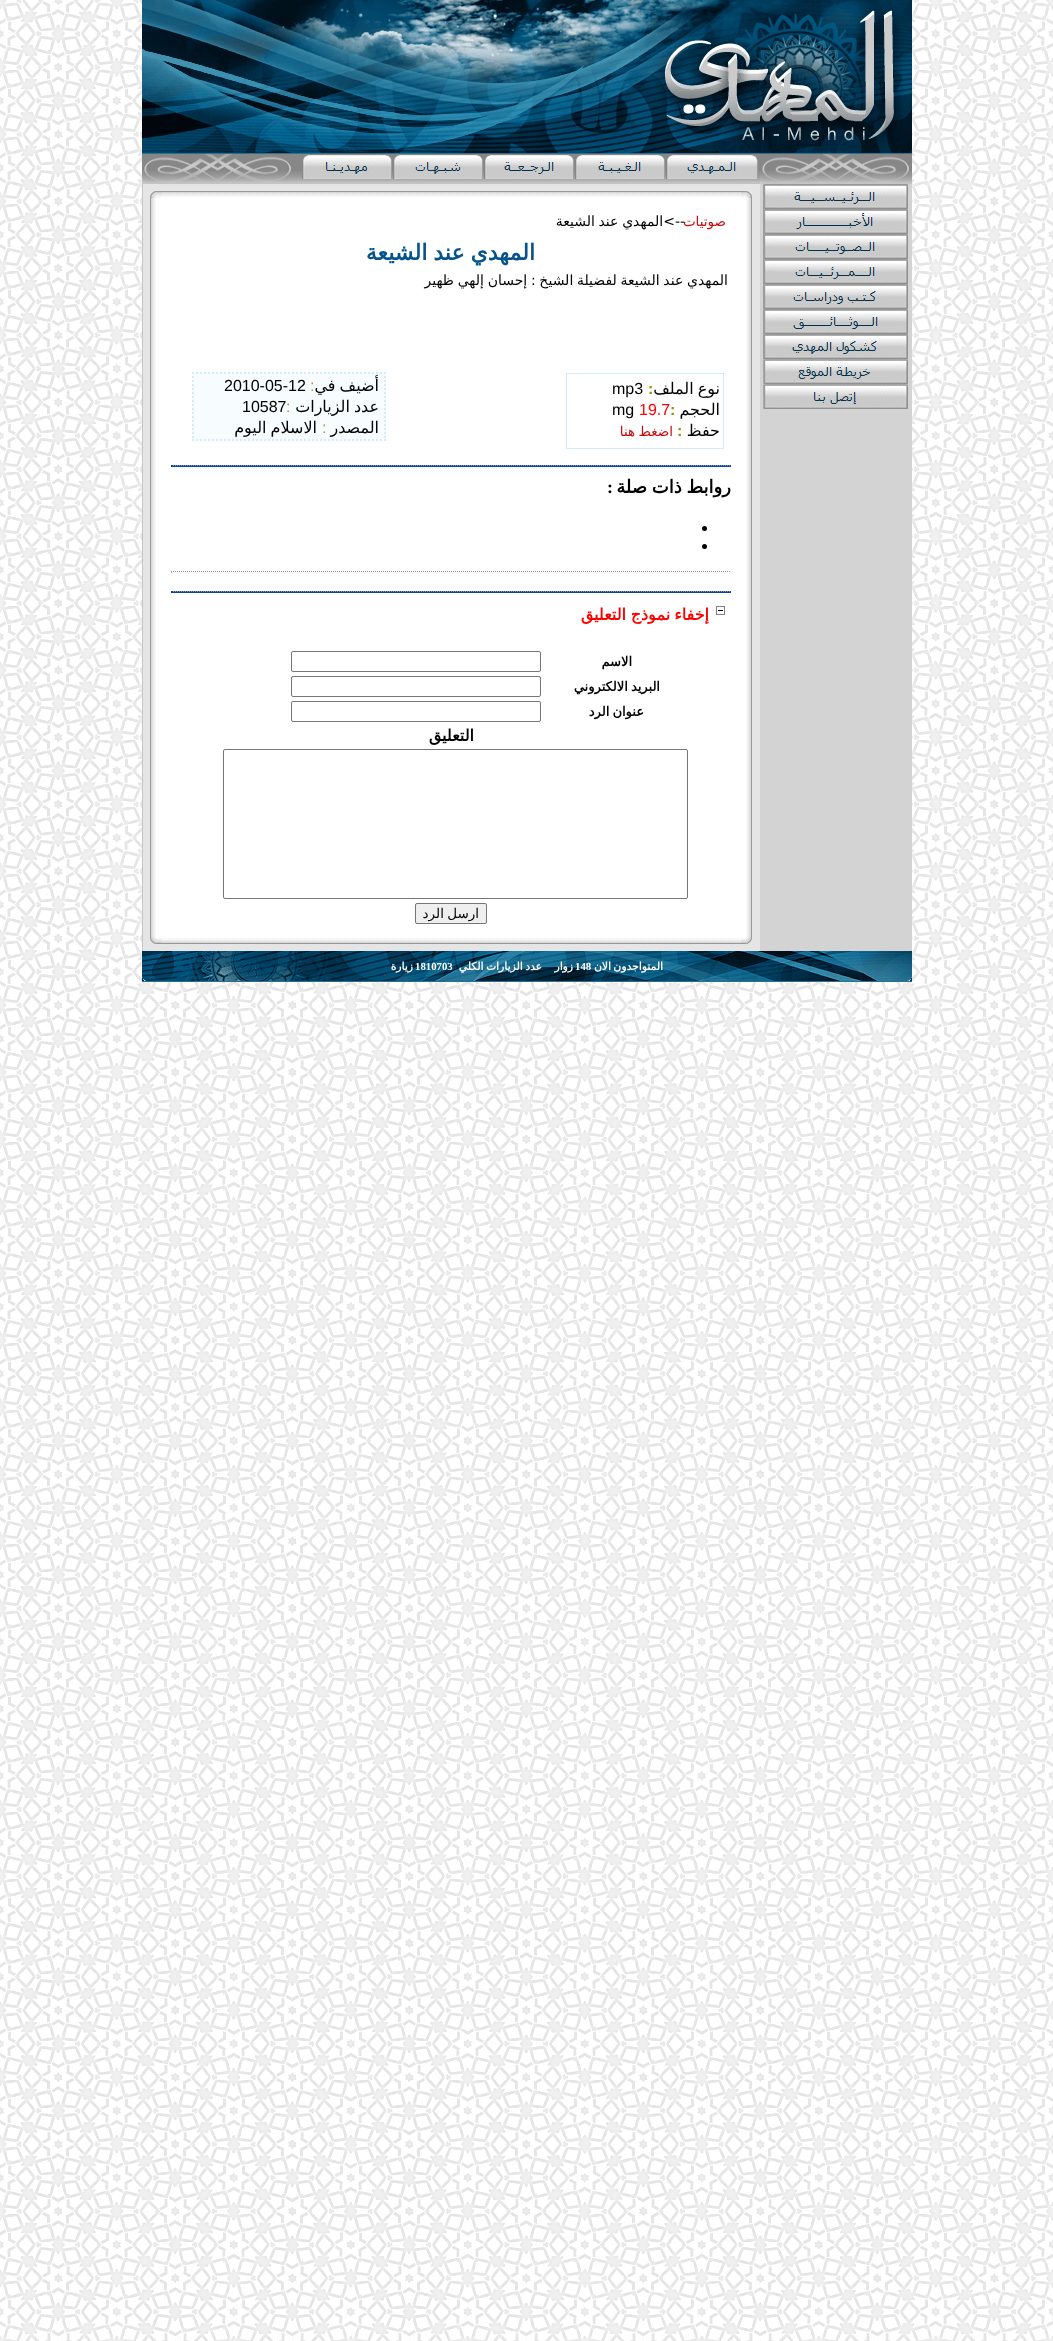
<svg xmlns="http://www.w3.org/2000/svg" width="1053" height="2341" viewBox="0 0 1053 2341">
  <rect width="100%" height="100%" fill="rgb(255,255,255)"/>
  <image x="0" y="0" width="1053" height="2341" href="pic1.png"/>
  <rect x="142" y="153" width="770" height="1" fill="rgb(35,114,148)"/>
  <image x="142" y="0" width="770" height="153" href="pic2.png"/>
  <image x="291" y="154" width="621" height="30" href="pic3.png"/>
  <image x="760" y="154" width="149" height="30" href="pic4.png"/>
  <image x="666" y="154" width="92" height="25" href="pic5.png"/>
  <image x="575" y="154" width="90" height="25" href="pic6.png"/>
  <image x="484" y="154" width="90" height="25" href="pic7.png"/>
  <image x="393" y="154" width="90" height="25" href="pic8.png"/>
  <image x="302" y="154" width="90" height="25" href="pic9.png"/>
  <image x="142" y="154" width="149" height="30" href="pic4.png"/>
  <rect x="760" y="184" width="152" height="767" fill="rgb(211,211,211)"/>
  <image x="763" y="184" width="145" height="25" href="pic10.png"/>
  <image x="763" y="209" width="145" height="25" href="pic11.png"/>
  <image x="763" y="234" width="145" height="25" href="pic12.png"/>
  <image x="763" y="259" width="145" height="25" href="pic13.png"/>
  <image x="763" y="284" width="145" height="25" href="pic14.png"/>
  <image x="763" y="309" width="145" height="25" href="pic15.png"/>
  <image x="763" y="334" width="145" height="25" href="pic16.png"/>
  <image x="763" y="359" width="145" height="25" href="pic17.png"/>
  <image x="763" y="384" width="145" height="25" href="pic18.png"/>
  <rect x="143" y="184" width="617" height="767" fill="rgb(229,229,229)"/>
  <rect x="142" y="184" width="1" height="767" fill="rgb(197,197,197)"/>
  <image x="741" y="191" width="11" height="7" href="pic19.png"/>
  <image x="161" y="191" width="580" height="7" href="pic20.png"/>
  <image x="150" y="191" width="11" height="7" href="pic21.png"/>
  <image x="741" y="198" width="11" height="739" href="pic22.png"/>
  <rect x="161" y="198" width="580" height="739" fill="rgb(255,255,255)"/>
  <text x="726" y="226" font-family="DejaVu Sans" font-size="13.5" direction="rtl" fill="rgb(201,10,10)">صوتيات</text>
  <text x="685" y="226" word-spacing="-0.75" font-family="DejaVu Sans" font-size="14" direction="rtl" fill="rgb(0,0,0)">--&gt;المهدي عند الشيعة</text>
  <text x="535" y="260" word-spacing="-1" font-family="DejaVu Sans" font-size="22" font-weight="bold" direction="rtl" fill="rgb(5,83,140)">المهدي عند الشيعة</text>
  <text x="728" y="285" word-spacing="-0.75" font-family="DejaVu Sans" font-size="14" direction="rtl" fill="rgb(0,0,0)">المهدي عند الشيعة لفضيلة الشيخ : إحسان إلهي ظهير</text>
  <rect x="566.5" y="373.5" width="157" height="75" fill="none" stroke="rgb(210,236,252)"/>
  <text x="720" y="394" word-spacing="-1" font-family="DejaVu Sans" font-size="16" direction="rtl" fill="rgb(0,0,0)">نوع الملف</text>
  <text x="648" y="394" font-family="Liberation Sans" font-size="16" font-weight="bold" fill="rgb(159,144,0)">:</text>
  <text x="612" y="394" font-family="Liberation Sans" font-size="16" fill="rgb(0,0,0)">mp3</text>
  <text x="720" y="415" font-family="DejaVu Sans" font-size="16" direction="rtl" fill="rgb(0,0,0)">الحجم</text>
  <text x="670" y="415" font-family="Liberation Sans" font-size="16" font-weight="bold" fill="rgb(159,144,0)">:</text>
  <text x="639" y="415" font-family="Liberation Sans" font-size="16" fill="rgb(255,0,0)">19.7</text>
  <text x="612" y="415" font-family="Liberation Sans" font-size="16" fill="rgb(0,0,0)">mg</text>
  <text x="720" y="436" font-family="DejaVu Sans" font-size="16" direction="rtl" fill="rgb(0,0,0)">حفظ</text>
  <text x="677" y="436" font-family="Liberation Sans" font-size="16" font-weight="bold" fill="rgb(159,144,0)">:</text>
  <text x="673" y="436" word-spacing="-1" font-family="DejaVu Sans" font-size="13.5" direction="rtl" fill="rgb(201,10,10)">اضغط هنا</text>
  <rect x="192" y="372" width="194" height="69" fill="rgb(247,252,255)"/>
  <path d="M192 373H386" fill="none" stroke="rgb(210,236,252)" stroke-width="2" stroke-dasharray="2 2"/>
  <path d="M385 372V441" fill="none" stroke="rgb(210,236,252)" stroke-width="2" stroke-dasharray="2 2"/>
  <path d="M192 440H386" fill="none" stroke="rgb(210,236,252)" stroke-width="2" stroke-dasharray="2 2"/>
  <path d="M193 372V441" fill="none" stroke="rgb(210,236,252)" stroke-width="2" stroke-dasharray="2 2"/>
  <text x="379" y="391" word-spacing="-1" font-family="DejaVu Sans" font-size="16" direction="rtl" fill="rgb(0,0,0)">أضيف في</text>
  <text x="310" y="391" font-family="Liberation Sans" font-size="16" fill="rgb(192,146,32)">:</text>
  <text x="224" y="391" font-family="Liberation Sans" font-size="16" fill="rgb(0,0,0)">2010-05-12</text>
  <text x="379" y="412" word-spacing="-1" font-family="DejaVu Sans" font-size="16" direction="rtl" fill="rgb(0,0,0)">عدد الزيارات</text>
  <text x="286" y="412" font-family="Liberation Sans" font-size="16" fill="rgb(192,146,32)">:</text>
  <text x="242" y="412" font-family="Liberation Sans" font-size="16" fill="rgb(0,0,0)">10587</text>
  <text x="379" y="433" font-family="DejaVu Sans" font-size="16" direction="rtl" fill="rgb(0,0,0)">المصدر</text>
  <text x="322" y="433" font-family="Liberation Sans" font-size="16" fill="rgb(192,146,32)">:</text>
  <text x="317" y="433" word-spacing="-1" font-family="DejaVu Sans" font-size="16" direction="rtl" fill="rgb(0,0,0)">الاسلام اليوم</text>
  <rect x="171" y="465" width="560" height="2" fill="rgb(11,69,168)"/>
  <path d="M171 465.5H731" fill="none" stroke="rgb(153,153,153)" stroke-dasharray="1 1"/>
  <rect x="171" y="465" width="1" height="2" fill="rgb(11,69,168)"/>
  <text x="731" y="493" word-spacing="-1" font-family="DejaVu Sans" font-size="18" font-weight="bold" direction="rtl" fill="rgb(0,0,0)">روابط ذات صلة</text>
  <text x="607" y="493" font-family="Liberation Serif" font-size="18" font-weight="bold" fill="rgb(0,0,0)">:</text>
  <circle cx="704.5" cy="528.5" r="2.5" fill="rgb(0,0,0)"/>
  <circle cx="704.5" cy="546.5" r="2.5" fill="rgb(0,0,0)"/>
  <path d="M171 571.5H731" fill="none" stroke="rgb(153,153,153)" stroke-dasharray="1 1"/>
  <rect x="730" y="571" width="1" height="2" fill="rgb(238,238,238)"/>
  <rect x="171" y="571" width="1" height="2" fill="rgb(159,159,159)"/>
  <rect x="171" y="591" width="560" height="2" fill="rgb(11,69,168)"/>
  <path d="M171 591.5H731" fill="none" stroke="rgb(153,153,153)" stroke-dasharray="1 1"/>
  <rect x="171" y="591" width="1" height="2" fill="rgb(11,69,168)"/>
  <image x="716" y="606" width="9" height="9" href="pic23.png"/>
  <g font-family="DejaVu Sans" font-size="16" font-weight="bold" direction="rtl" fill="rgb(255,0,0)">
    <text x="709" y="620" word-spacing="-1">إخفاء نموذج</text>
    <text x="626" y="620">التعليق</text>
  </g>
  <text x="632" y="666" font-family="DejaVu Sans" font-size="13" font-weight="bold" direction="rtl" fill="rgb(0,0,0)">الاسم</text>
  <rect x="291.5" y="651.5" width="249" height="20" rx="1.5" fill="none" stroke="rgb(118,118,118)"/>
  <text x="660" y="691" word-spacing="-1" font-family="DejaVu Sans" font-size="13" font-weight="bold" direction="rtl" fill="rgb(0,0,0)">البريد الالكتروني</text>
  <rect x="291.5" y="676.5" width="249" height="20" rx="1.5" fill="none" stroke="rgb(118,118,118)"/>
  <text x="644" y="716" word-spacing="-1" font-family="DejaVu Sans" font-size="13" font-weight="bold" direction="rtl" fill="rgb(0,0,0)">عنوان الرد</text>
  <rect x="291.5" y="701.5" width="249" height="20" rx="1.5" fill="none" stroke="rgb(118,118,118)"/>
  <text x="474" y="741" font-family="DejaVu Sans" font-size="16" font-weight="bold" direction="rtl" fill="rgb(0,0,0)">التعليق</text>
  <rect x="223.5" y="749.5" width="464" height="149" rx="1.5" fill="none" stroke="rgb(118,118,118)"/>
  <rect x="415.5" y="903.5" width="71" height="20" rx="1.5" fill="rgb(239,239,239)" stroke="rgb(118,118,118)"/>
  <text x="479" y="918" word-spacing="-1" font-family="DejaVu Sans" font-size="13.5" direction="rtl" fill="rgb(0,0,0)">ارسل الرد</text>
  <image x="150" y="198" width="11" height="739" href="pic24.png"/>
  <image x="741" y="937" width="11" height="7" href="pic25.png"/>
  <image x="161" y="937" width="580" height="7" href="pic26.png"/>
  <image x="150" y="937" width="11" height="7" href="pic27.png"/>
  <rect x="142" y="978" width="770" height="3" fill="rgb(0,49,76)"/>
  <rect x="142" y="981" width="770" height="1" fill="rgb(35,114,148)"/>
  <image x="142" y="951" width="770" height="30" href="pic28.png"/>
  <text x="663" y="970" word-spacing="-1" font-family="DejaVu Sans" font-size="10.75" font-weight="bold" direction="rtl" fill="rgb(255,255,255)">المتواجدون الان</text>
  <text x="575" y="970" font-family="Liberation Serif" font-size="10.75" font-weight="bold" fill="rgb(255,255,255)">148</text>
  <g font-family="DejaVu Sans" font-size="10.75" font-weight="bold" direction="rtl" fill="rgb(255,255,255)">
    <text x="573" y="970">زوار</text>
    <text x="542" y="970" word-spacing="-1">عدد الزيارات الكلي</text>
  </g>
  <text x="415" y="970" font-family="Liberation Serif" font-size="10.75" font-weight="bold" fill="rgb(255,255,255)">1810703</text>
  <text x="413" y="970" font-family="DejaVu Sans" font-size="10.75" font-weight="bold" direction="rtl" fill="rgb(255,255,255)">زيارة</text>
</svg>
